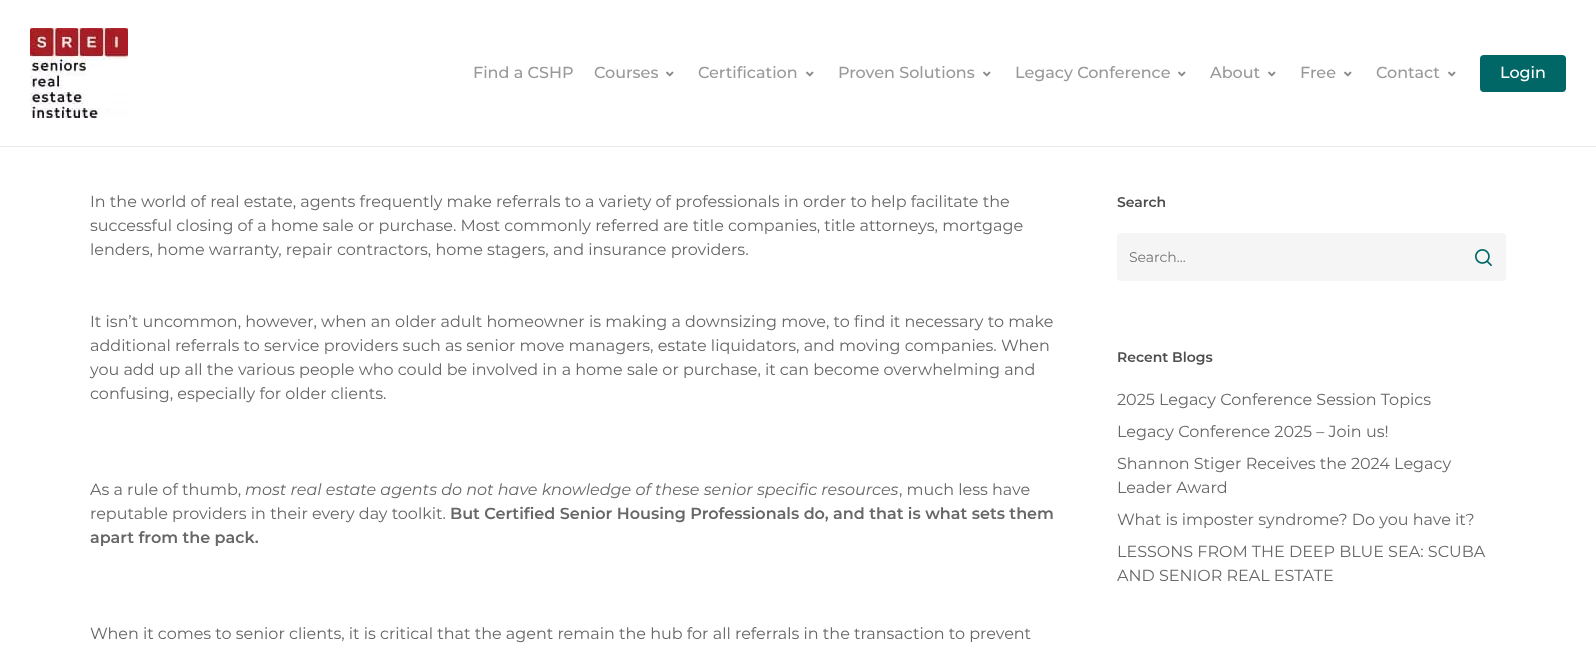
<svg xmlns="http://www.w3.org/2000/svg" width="1596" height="652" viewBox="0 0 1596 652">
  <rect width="100%" height="100%" fill="rgb(255,255,255)"/>
  <rect x="0" y="146" width="1596" height="1" fill="rgb(235,235,235)"/>
  <image x="30" y="28" width="98" height="90" href="pic1.png"/>
  <g font-family="Montserrat" font-size="16" font-weight="500" fill="rgb(153,153,153)">
    <text x="473" y="78">Find a CSHP</text>
    <text x="594" y="78">Courses</text>
  </g>
  <image x="666" y="71" width="8" height="6" href="pic2.png"/>
  <text x="698" y="78" font-family="Montserrat" font-size="16" font-weight="500" fill="rgb(153,153,153)">Certification</text>
  <image x="806" y="71" width="8" height="6" href="pic2.png"/>
  <text x="838" y="78" font-family="Montserrat" font-size="16" font-weight="500" fill="rgb(153,153,153)">Proven Solutions</text>
  <image x="983" y="71" width="8" height="6" href="pic2.png"/>
  <text x="1015" y="78" font-family="Montserrat" font-size="16" font-weight="500" fill="rgb(153,153,153)">Legacy Conference</text>
  <image x="1178" y="71" width="8" height="6" href="pic2.png"/>
  <text x="1210" y="78" font-family="Montserrat" font-size="16" font-weight="500" fill="rgb(153,153,153)">About</text>
  <image x="1268" y="71" width="8" height="6" href="pic2.png"/>
  <text x="1300" y="78" font-family="Montserrat" font-size="16" font-weight="500" fill="rgb(153,153,153)">Free</text>
  <image x="1344" y="71" width="8" height="6" href="pic2.png"/>
  <text x="1376" y="78" font-family="Montserrat" font-size="16" font-weight="500" fill="rgb(153,153,153)">Contact</text>
  <image x="1448" y="71" width="8" height="6" href="pic2.png"/>
  <rect x="1480" y="55" width="86" height="37" rx="4" fill="rgb(0,102,102)"/>
  <text x="1500" y="78" font-family="Montserrat" font-size="16" font-weight="500" fill="rgb(255,255,255)">Login</text>
  <g font-family="Montserrat" font-size="16" fill="rgb(103,103,103)">
    <text>
      <tspan x="90" y="207">In the world of real estate, agents frequently make referrals to a variety of professionals in order to help facilitate the</tspan>
      <tspan x="90" y="231">successful closing of a home sale or purchase. Most commonly referred are title companies, title attorneys, mortgage</tspan>
      <tspan x="90" y="255">lenders, home warranty, repair contractors, home stagers, and insurance providers.</tspan>
    </text>
    <text>
      <tspan x="90" y="327">It isn’t uncommon, however, when an older adult homeowner is making a downsizing move, to find it necessary to make</tspan>
      <tspan x="90" y="351">additional referrals to service providers such as senior move managers, estate liquidators, and moving companies. When</tspan>
      <tspan x="90" y="375">you add up all the various people who could be involved in a home sale or purchase, it can become overwhelming and</tspan>
      <tspan x="90" y="399">confusing, especially for older clients.</tspan>
    </text>
    <text x="90" y="495">As a rule of thumb,</text>
  </g>
  <text x="245" y="495" font-family="Montserrat" font-size="16" font-weight="100" font-style="italic" fill="rgb(103,103,103)">most real estate agents do not have knowledge of these senior specific resources</text>
  <g font-family="Montserrat" font-size="16" fill="rgb(103,103,103)">
    <text x="899" y="495">, much less have</text>
    <text x="90" y="519">reputable providers in their every day toolkit.</text>
  </g>
  <g font-family="Montserrat" font-size="16" font-weight="600" fill="rgb(103,103,103)">
    <text x="450" y="519">But Certified Senior Housing Professionals do, and that is what sets them</text>
    <text x="90" y="543">apart from the pack.</text>
  </g>
  <text x="90" y="639" font-family="Montserrat" font-size="16" fill="rgb(103,103,103)">When it comes to senior clients, it is critical that the agent remain the hub for all referrals in the transaction to prevent</text>
  <text x="1117" y="207" font-family="Montserrat" font-size="14" font-weight="600" fill="rgb(77,77,77)">Search</text>
  <rect x="1117" y="233" width="389" height="48" rx="4" fill="rgb(245,245,245)"/>
  <text x="1129" y="262" font-family="Montserrat" font-size="14" fill="rgb(117,117,117)">Search...</text>
  <image x="1475" y="249" width="17" height="17" href="pic3.png"/>
  <text x="1117" y="362" font-family="Montserrat" font-size="14" font-weight="600" fill="rgb(77,77,77)">Recent Blogs</text>
  <g font-family="Montserrat" font-size="16" fill="rgb(103,103,103)">
    <text x="1117" y="405">2025 Legacy Conference Session Topics</text>
    <text x="1117" y="437">Legacy Conference 2025 – Join us!</text>
    <text>
      <tspan x="1117" y="469">Shannon Stiger Receives the 2024 Legacy</tspan>
      <tspan x="1117" y="493">Leader Award</tspan>
    </text>
    <text x="1117" y="525">What is imposter syndrome? Do you have it?</text>
    <text>
      <tspan x="1117" y="557">LESSONS FROM THE DEEP BLUE SEA: SCUBA</tspan>
      <tspan x="1117" y="581">AND SENIOR REAL ESTATE</tspan>
    </text>
  </g>
</svg>
